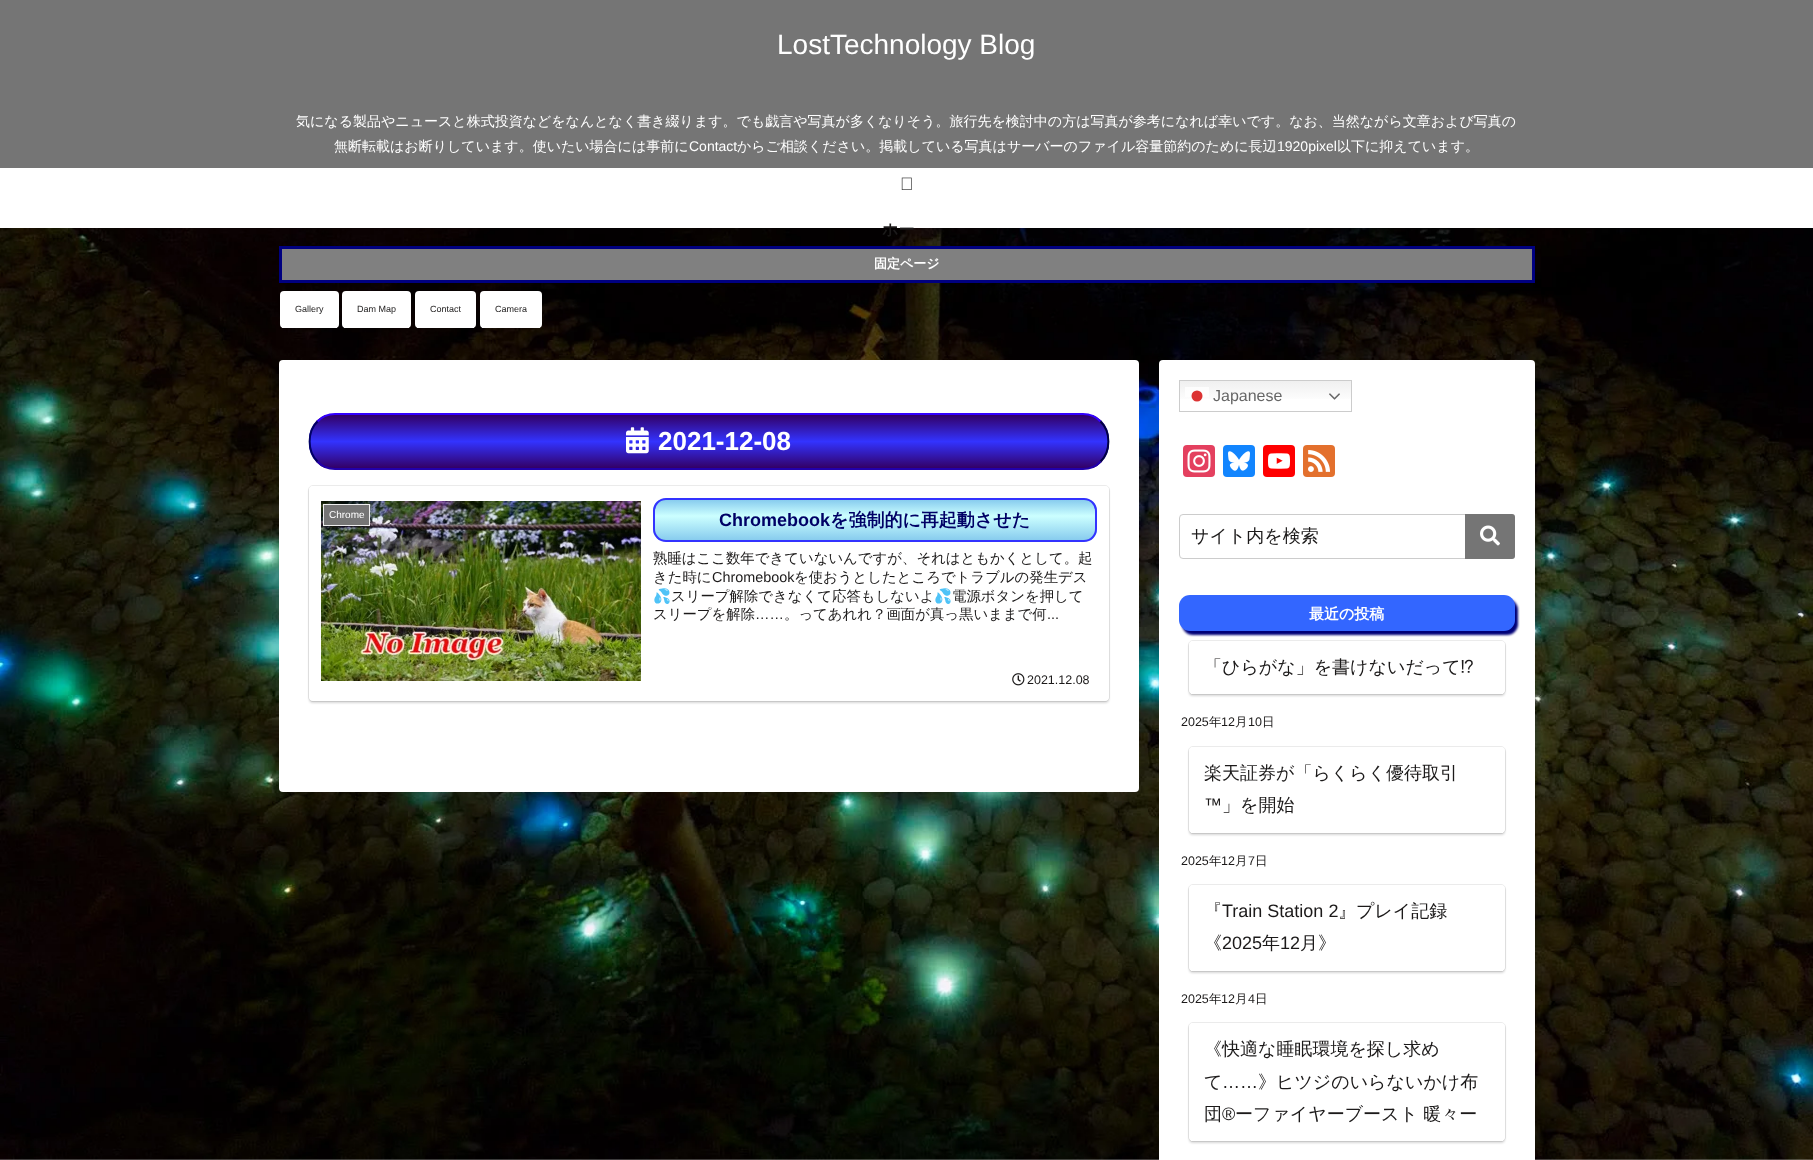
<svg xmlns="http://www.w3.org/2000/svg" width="1813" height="1160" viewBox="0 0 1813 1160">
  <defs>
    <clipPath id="clip1"><rect x="309" y="413" width="800" height="57" rx="26"/></clipPath>
    <linearGradient id="g1" gradientUnits="userSpaceOnUse" x1="709" y1="415" x2="709" y2="468"><stop offset="0" stop-color="rgb(51,0,102)"/><stop offset="0.5" stop-color="rgb(51,51,255)"/><stop offset="1" stop-color="rgb(51,0,102)"/></linearGradient>
    <clipPath id="clip2"><rect x="653" y="498" width="444" height="44" rx="13"/></clipPath>
    <linearGradient id="g2" gradientUnits="userSpaceOnUse" x1="875" y1="500" x2="875" y2="540"><stop offset="0" stop-color="rgb(136,204,238)"/><stop offset="0.4" stop-color="rgb(204,255,255)"/><stop offset="1" stop-color="rgb(136,204,238)"/></linearGradient>
    <clipPath id="clip3"><rect x="653" y="549" width="444" height="75"/></clipPath>
    <linearGradient id="g3" gradientUnits="userSpaceOnUse" x1="1266" y1="380" x2="1266" y2="412"><stop offset="0" stop-color="rgb(239,239,239)"/><stop offset="0.7" stop-color="rgb(255,255,255)"/></linearGradient>
  </defs>
  <rect width="100%" height="100%" fill="rgb(255,255,255)"/>
  <image x="0" y="228" width="1813" height="932" href="pic1.png"/>
  <rect x="0" y="0" width="1813" height="168" fill="rgb(117,117,117)"/>
  <text x="777" y="54" font-family="Liberation Sans" font-size="28" fill="rgb(255,255,255)">LostTechnology Blog</text>
  <g font-family="WenQuanYi Zen Hei" font-size="14" font-weight="500" fill="rgb(255,255,255)">
    <text x="296" y="126">気になる製品やニュースと株式投資などをなんとなく書き綴ります。でも戯言や写真が多くなりそう。旅行先を検討中の方は写真が参考になれば幸いです。なお、当然ながら文章および写真の</text>
    <text x="334" y="151">無断転載はお断りしています。使いたい場合には事前に</text>
  </g>
  <text x="689" y="151" font-family="Liberation Sans" font-size="14" fill="rgb(255,255,255)">Contact</text>
  <text x="737" y="151" font-family="WenQuanYi Zen Hei" font-size="14" font-weight="500" fill="rgb(255,255,255)">からご相談ください。掲載している写真はサーバーのファイル容量節約のために長辺</text>
  <text x="1277" y="151" font-family="Liberation Sans" font-size="14" fill="rgb(255,255,255)">1920pixel</text>
  <text x="1337" y="151" font-family="WenQuanYi Zen Hei" font-size="14" font-weight="500" fill="rgb(255,255,255)">以下に抑えています。</text>
  <image x="901" y="177" width="11" height="13" href="pic2.png"/>
  <text x="882" y="235" font-family="WenQuanYi Zen Hei" font-size="16" font-weight="bold" fill="rgb(28,26,26)">ホー</text>
  <rect x="280.5" y="247.5" width="1253" height="34" fill="rgb(128,128,128)" stroke="rgb(0,0,128)" stroke-width="3"/>
  <text x="874" y="268" font-family="WenQuanYi Zen Hei" font-size="13" font-weight="bold" fill="rgb(255,255,255)">固定ページ</text>
  <rect x="280" y="291" width="59" height="37" rx="4" fill="rgb(255,255,255)"/>
  <rect x="282" y="327" width="55" height="1" fill="rgb(255,255,255)"/>
  <text x="295" y="312" font-family="Liberation Sans" font-size="9" fill="rgb(28,26,26)">Gallery</text>
  <rect x="342" y="291" width="69" height="37" rx="4" fill="rgb(255,255,255)"/>
  <rect x="344" y="327" width="65" height="1" fill="rgb(255,255,255)"/>
  <text x="357" y="312" font-family="Liberation Sans" font-size="9" fill="rgb(28,26,26)">Dam Map</text>
  <rect x="415" y="291" width="61" height="37" rx="4" fill="rgb(255,255,255)"/>
  <rect x="417" y="327" width="57" height="1" fill="rgb(255,255,255)"/>
  <text x="430" y="312" font-family="Liberation Sans" font-size="9" fill="rgb(28,26,26)">Contact</text>
  <rect x="480" y="291" width="62" height="37" rx="4" fill="rgb(255,255,255)"/>
  <rect x="482" y="327" width="58" height="1" fill="rgb(255,255,255)"/>
  <text x="495" y="312" font-family="Liberation Sans" font-size="9" fill="rgb(28,26,26)">Camera</text>
  <rect x="279" y="360" width="860" height="432" rx="4" fill="rgb(255,255,255)"/>
  <g clip-path="url(#clip1)">
    <rect x="309" y="415" width="800" height="53" fill="url(#g1)"/>
  </g>
  <path d="M317.5 421.5C322 416.5 328.5 414 335 414H1083C1089.5 414 1096 416.5 1100.5 421.5" fill="none" stroke="rgb(51,0,255)" stroke-width="2"/>
  <path d="M1100.5 421.5C1111 431.5 1111 451.5 1100.5 461.5" fill="none" stroke="rgb(0,0,68)" stroke-width="2"/>
  <path d="M1100.5 461.5C1096 466.5 1089.5 469 1083 469H335C328.5 469 322 466.5 317.5 461.5" fill="none" stroke="rgb(34,0,170)" stroke-width="2"/>
  <path d="M317.5 461.5C307 451.5 307 431.5 317.5 421.5" fill="none" stroke="rgb(0,0,102)" stroke-width="2"/>
  <image x="626" y="427" width="23" height="27" href="pic3.png"/>
  <text x="658" y="450" font-family="Liberation Sans" font-size="26" font-weight="bold" fill="rgb(255,255,255)">2021-12-08</text>
  <rect x="308.5" y="485.5" width="801" height="216" rx="4.5" fill="none" stroke="rgb(235,235,235)"/>
  <rect x="309" y="488" width="800" height="215" rx="4" fill="rgba(0,0,0,0.16)" filter="blur(1px)"/>
  <rect x="309" y="486" width="800" height="215" rx="4" fill="rgb(255,255,255)"/>
  <image x="321" y="501" width="320" height="180" href="pic4.png"/>
  <rect x="323.5" y="504.5" width="46" height="21" fill="rgb(117,117,117)" stroke="rgb(238,238,238)"/>
  <text x="329" y="518" font-family="Liberation Sans" font-size="10" fill="rgb(255,255,255)">Chrome</text>
  <g clip-path="url(#clip2)">
    <rect x="653" y="500" width="444" height="40" fill="url(#g2)"/>
  </g>
  <rect x="654" y="499" width="442" height="42" rx="12" fill="none" stroke="rgb(51,51,255)" stroke-width="2"/>
  <text x="719" y="526" font-family="Liberation Sans" font-size="18" font-weight="bold" fill="rgb(0,0,102)">Chromebook</text>
  <text x="830" y="526" font-family="WenQuanYi Zen Hei" font-size="18" font-weight="bold" fill="rgb(0,0,102)">を強制的に再起動させた</text>
  <g font-family="WenQuanYi Zen Hei" font-size="14.4" font-weight="500" fill="rgb(28,26,26)">
    <text>
      <tspan x="653" y="563">熟睡はここ数年できていないんですが、それはともかくとして。起</tspan>
      <tspan x="653" y="582">きた時に</tspan>
    </text>
  </g>
  <text x="712" y="582" font-family="Liberation Sans" font-size="14.4" fill="rgb(28,26,26)">Chromebook</text>
  <text x="794" y="582" font-family="WenQuanYi Zen Hei" font-size="14.4" font-weight="500" fill="rgb(28,26,26)">を使おうとしたところでトラブルの発生デス</text>
  <g clip-path="url(#clip3)">
    <text x="653" y="601" font-family="Noto Color Emoji" font-size="14.4" fill="rgb(28,26,26)">💦</text>
  </g>
  <text x="671" y="601" font-family="WenQuanYi Zen Hei" font-size="14.4" font-weight="500" fill="rgb(28,26,26)">スリープ解除できなくて応答もしないよ</text>
  <text x="934" y="601" font-family="Noto Color Emoji" font-size="14.4" fill="rgb(28,26,26)">💦</text>
  <g font-family="WenQuanYi Zen Hei" font-size="14.4" font-weight="500" fill="rgb(28,26,26)">
    <text x="952" y="601">電源ボタンを押して</text>
    <text x="653" y="619">スリープを解除</text>
  </g>
  <text x="755" y="619" font-family="Liberation Sans" font-size="14.4" fill="rgb(28,26,26)">……</text>
  <text x="784" y="619" font-family="WenQuanYi Zen Hei" font-size="14.4" font-weight="500" fill="rgb(28,26,26)">。ってあれれ？画面が真っ黒いままで何</text>
  <text x="1047" y="619" font-family="Liberation Sans" font-size="14.4" fill="rgb(28,26,26)">...</text>
  <image x="1012" y="673" width="13" height="13" href="pic5.png"/>
  <text x="1027" y="684" font-family="Liberation Sans" font-size="12.5" fill="rgb(28,26,26)">2021.12.08</text>
  <rect x="1159" y="360" width="376" height="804" rx="4" fill="rgb(255,255,255)"/>
  <rect x="1180" y="381" width="171" height="18" fill="url(#g3)"/>
  <rect x="1179.5" y="380.5" width="172" height="31" fill="none" stroke="rgb(204,204,204)"/>
  <rect x="1185" y="387" width="24" height="10" fill="rgba(255,255,255,0.8)"/>
  <circle cx="1197" cy="396" r="5.5" fill="rgb(220,51,51)"/>
  <text x="1213" y="401" font-family="Liberation Sans" font-size="16" fill="rgb(102,102,102)">Japanese</text>
  <image x="1329" y="393" width="11" height="7" href="pic6.png"/>
  <rect x="1183" y="445" width="32" height="32" rx="4" fill="rgb(228,64,95)"/>
  <image x="1187" y="449" width="24" height="24" href="pic7.png"/>
  <rect x="1223" y="445" width="32" height="32" rx="4" fill="rgb(18,133,254)"/>
  <image x="1228" y="451" width="22" height="20" href="pic8.png"/>
  <rect x="1263" y="445" width="32" height="32" rx="4" fill="rgb(255,0,0)"/>
  <image x="1268" y="453" width="22" height="16" href="pic9.png"/>
  <rect x="1303" y="445" width="32" height="32" rx="4" fill="rgb(227,112,45)"/>
  <image x="1308" y="450" width="22" height="22" href="pic10.png"/>
  <rect x="1179.5" y="514.5" width="335" height="44" rx="3.5" fill="none" stroke="rgb(204,204,204)"/>
  <text x="1191" y="542" font-family="WenQuanYi Zen Hei" font-size="18" font-weight="500" fill="rgb(28,26,26)">サイト内を検索</text>
  <path d="M1466 515H1512C1513 515 1514 516 1514 517V556C1514 557 1513 558 1512 558H1466Z" fill="rgb(117,117,117)" stroke="rgb(117,117,117)" stroke-width="2"/>
  <image x="1480" y="525" width="20" height="21" href="pic11.png"/>
  <rect x="1182" y="599" width="336" height="36" rx="11" fill="rgb(0,0,119)" filter="blur(1px)"/>
  <rect x="1179" y="595" width="336" height="36" rx="11" fill="rgb(51,102,255)"/>
  <text x="1309" y="619" font-family="WenQuanYi Zen Hei" font-size="15" font-weight="bold" fill="rgb(255,255,255)">最近の投稿</text>
  <rect x="1188.5" y="640.5" width="317" height="54" rx="4.5" fill="none" stroke="rgb(235,235,235)"/>
  <rect x="1189" y="643" width="316" height="53" rx="4" fill="rgba(0,0,0,0.16)" filter="blur(1px)"/>
  <rect x="1189" y="641" width="316" height="53" rx="4" fill="rgb(255,255,255)"/>
  <rect x="1191" y="693" width="312" height="1" fill="rgb(255,255,255)"/>
  <text x="1204" y="673" font-family="WenQuanYi Zen Hei" font-size="18" font-weight="500" fill="rgb(28,26,26)">「ひらがな」を書けないだって</text>
  <text x="1460" y="673" font-family="IPAPGothic" font-size="18" fill="rgb(28,26,26)">⁉</text>
  <text x="1181" y="726" font-family="Liberation Sans" font-size="12.5" fill="rgb(28,26,26)">2025</text>
  <text x="1209" y="726" font-family="WenQuanYi Zen Hei" font-size="12.5" font-weight="500" fill="rgb(28,26,26)">年</text>
  <text x="1221" y="726" font-family="Liberation Sans" font-size="12.5" fill="rgb(28,26,26)">12</text>
  <text x="1235" y="726" font-family="WenQuanYi Zen Hei" font-size="12.5" font-weight="500" fill="rgb(28,26,26)">月</text>
  <text x="1248" y="726" font-family="Liberation Sans" font-size="12.5" fill="rgb(28,26,26)">10</text>
  <text x="1262" y="726" font-family="WenQuanYi Zen Hei" font-size="12.5" font-weight="500" fill="rgb(28,26,26)">日</text>
  <rect x="1188.5" y="746.5" width="317" height="87" rx="4.5" fill="none" stroke="rgb(235,235,235)"/>
  <rect x="1189" y="749" width="316" height="86" rx="4" fill="rgba(0,0,0,0.16)" filter="blur(1px)"/>
  <rect x="1189" y="747" width="316" height="86" rx="4" fill="rgb(255,255,255)"/>
  <rect x="1191" y="832" width="312" height="1" fill="rgb(255,255,255)"/>
  <text x="1204" y="779" font-family="WenQuanYi Zen Hei" font-size="18" font-weight="500" fill="rgb(28,26,26)">楽天証券が「らくらく優待取引</text>
  <text x="1204" y="811" font-family="Liberation Sans" font-size="18" fill="rgb(28,26,26)">™</text>
  <text x="1222" y="811" font-family="WenQuanYi Zen Hei" font-size="18" font-weight="500" fill="rgb(28,26,26)">」を開始</text>
  <text x="1181" y="865" font-family="Liberation Sans" font-size="12.5" fill="rgb(28,26,26)">2025</text>
  <text x="1209" y="865" font-family="WenQuanYi Zen Hei" font-size="12.5" font-weight="500" fill="rgb(28,26,26)">年</text>
  <text x="1221" y="865" font-family="Liberation Sans" font-size="12.5" fill="rgb(28,26,26)">12</text>
  <text x="1235" y="865" font-family="WenQuanYi Zen Hei" font-size="12.5" font-weight="500" fill="rgb(28,26,26)">月</text>
  <text x="1248" y="865" font-family="Liberation Sans" font-size="12.5" fill="rgb(28,26,26)">7</text>
  <text x="1255" y="865" font-family="WenQuanYi Zen Hei" font-size="12.5" font-weight="500" fill="rgb(28,26,26)">日</text>
  <rect x="1188.5" y="884.5" width="317" height="87" rx="4.5" fill="none" stroke="rgb(235,235,235)"/>
  <rect x="1189" y="887" width="316" height="86" rx="4" fill="rgba(0,0,0,0.16)" filter="blur(1px)"/>
  <rect x="1189" y="885" width="316" height="86" rx="4" fill="rgb(255,255,255)"/>
  <rect x="1191" y="970" width="312" height="1" fill="rgb(255,255,255)"/>
  <text x="1204" y="917" font-family="WenQuanYi Zen Hei" font-size="18" font-weight="500" fill="rgb(28,26,26)">『</text>
  <text x="1222" y="917" font-family="Liberation Sans" font-size="18" fill="rgb(28,26,26)">Train Station 2</text>
  <g font-family="WenQuanYi Zen Hei" font-size="18" font-weight="500" fill="rgb(28,26,26)">
    <text x="1338" y="917">』プレイ記録</text>
    <text x="1204" y="949">《</text>
  </g>
  <text x="1222" y="949" font-family="Liberation Sans" font-size="18" fill="rgb(28,26,26)">2025</text>
  <text x="1262" y="949" font-family="WenQuanYi Zen Hei" font-size="18" font-weight="500" fill="rgb(28,26,26)">年</text>
  <text x="1280" y="949" font-family="Liberation Sans" font-size="18" fill="rgb(28,26,26)">12</text>
  <text x="1300" y="949" font-family="WenQuanYi Zen Hei" font-size="18" font-weight="500" fill="rgb(28,26,26)">月》</text>
  <text x="1181" y="1003" font-family="Liberation Sans" font-size="12.5" fill="rgb(28,26,26)">2025</text>
  <text x="1209" y="1003" font-family="WenQuanYi Zen Hei" font-size="12.5" font-weight="500" fill="rgb(28,26,26)">年</text>
  <text x="1221" y="1003" font-family="Liberation Sans" font-size="12.5" fill="rgb(28,26,26)">12</text>
  <text x="1235" y="1003" font-family="WenQuanYi Zen Hei" font-size="12.5" font-weight="500" fill="rgb(28,26,26)">月</text>
  <text x="1248" y="1003" font-family="Liberation Sans" font-size="12.5" fill="rgb(28,26,26)">4</text>
  <text x="1255" y="1003" font-family="WenQuanYi Zen Hei" font-size="12.5" font-weight="500" fill="rgb(28,26,26)">日</text>
  <rect x="1188.5" y="1022.5" width="317" height="119" rx="4.5" fill="none" stroke="rgb(235,235,235)"/>
  <rect x="1189" y="1025" width="316" height="118" rx="4" fill="rgba(0,0,0,0.16)" filter="blur(1px)"/>
  <rect x="1189" y="1023" width="316" height="118" rx="4" fill="rgb(255,255,255)"/>
  <rect x="1191" y="1140" width="312" height="1" fill="rgb(255,255,255)"/>
  <g font-family="WenQuanYi Zen Hei" font-size="18" font-weight="500" fill="rgb(28,26,26)">
    <text>
      <tspan x="1204" y="1055">《快適な睡眠環境を探し求め</tspan>
      <tspan x="1204" y="1088">て</tspan>
    </text>
  </g>
  <text x="1222" y="1088" font-family="Liberation Sans" font-size="18" fill="rgb(28,26,26)">……</text>
  <g font-family="WenQuanYi Zen Hei" font-size="18" font-weight="500" fill="rgb(28,26,26)">
    <text x="1258" y="1088">》ヒツジのいらないかけ布</text>
    <text x="1204" y="1120">団</text>
  </g>
  <text x="1222" y="1120" font-family="Liberation Sans" font-size="18" fill="rgb(28,26,26)">®</text>
  <text x="1235" y="1120" font-family="WenQuanYi Zen Hei" font-size="18" font-weight="500" fill="rgb(28,26,26)">ーファイヤーブースト 暖々ー</text>
</svg>
